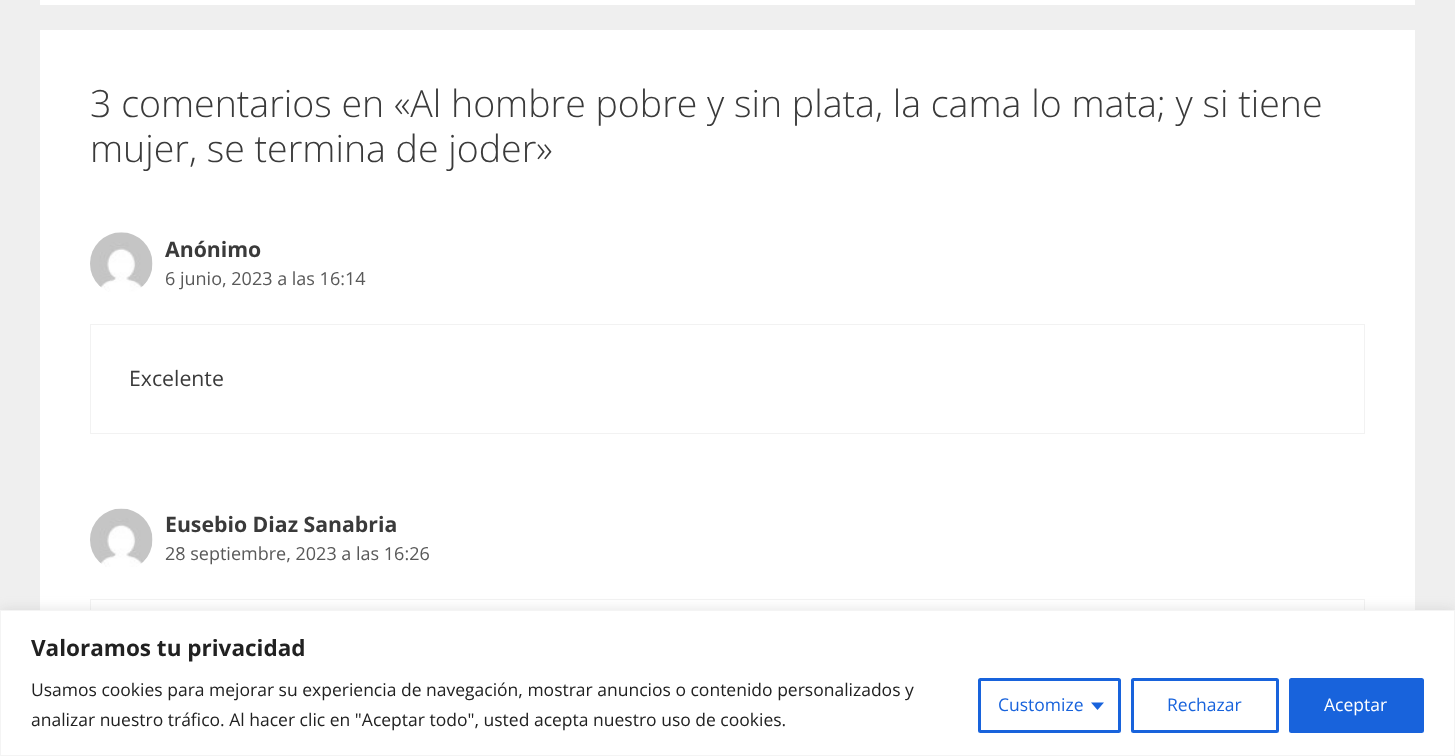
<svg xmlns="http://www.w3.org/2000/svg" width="1455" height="756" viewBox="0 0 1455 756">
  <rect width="100%" height="100%" fill="rgb(239,239,239)"/>
  <rect x="40" y="0" width="1375" height="5" fill="rgb(255,255,255)"/>
  <rect x="40" y="30" width="1375" height="580" fill="rgb(255,255,255)"/>
  <g font-family="Open Sans" font-size="37.5" font-weight="300" fill="rgb(58,58,58)">
    <text>
      <tspan x="90" y="117">3 comentarios en «Al hombre pobre y sin plata, la cama lo mata; y si tiene</tspan>
      <tspan x="90" y="162">mujer, se termina de joder»</tspan>
    </text>
  </g>
  <image x="90" y="232" width="63" height="60" href="pic1.png"/>
  <text x="165" y="257" font-family="Open Sans" font-size="21.25" font-weight="bold" fill="rgb(58,58,58)">Anónimo</text>
  <text x="165" y="285" font-family="Open Sans" font-size="18" fill="rgb(89,89,89)">6 junio, 2023 a las 16:14</text>
  <rect x="90.5" y="324.5" width="1274" height="109" fill="none" stroke="rgb(242,242,242)"/>
  <text x="129" y="386" font-family="Open Sans" font-size="21.25" fill="rgb(58,58,58)">Excelente</text>
  <image x="90" y="508" width="63" height="59" href="pic2.png"/>
  <text x="165" y="532" font-family="Open Sans" font-size="21.25" font-weight="bold" fill="rgb(58,58,58)">Eusebio Diaz Sanabria</text>
  <text x="165" y="560" font-family="Open Sans" font-size="18" fill="rgb(89,89,89)">28 septiembre, 2023 a las 16:26</text>
  <rect x="90.5" y="599.5" width="1274" height="109" fill="none" stroke="rgb(242,242,242)"/>
  <rect x="0" y="609" width="1455" height="146" fill="rgba(172,171,171,0.3)" filter="blur(6px)"/>
  <rect x="0.5" y="610.5" width="1454" height="145" fill="rgb(255,255,255)" stroke="rgb(244,244,244)"/>
  <text x="31" y="656" font-family="Open Sans" font-size="22.5" font-weight="bold" fill="rgb(33,33,33)">Valoramos tu privacidad</text>
  <g font-family="Open Sans" font-size="17.5" fill="rgb(33,33,33)">
    <text>
      <tspan x="31" y="696">Usamos cookies para mejorar su experiencia de navegación, mostrar anuncios o contenido personalizados y</tspan>
      <tspan x="31" y="726">analizar nuestro tráfico. Al hacer clic en "Aceptar todo", usted acepta nuestro uso de cookies.</tspan>
    </text>
  </g>
  <rect x="979.5" y="679.5" width="140" height="52" rx="1" fill="none" stroke="rgb(24,99,220)" stroke-width="3"/>
  <text x="998" y="711" font-family="Open Sans" font-size="17.5" fill="rgb(24,99,220)">Customize</text>
  <path d="M1091 702.5H1104L1097.5 710Z" fill="rgb(24,99,220)"/>
  <rect x="1132.5" y="679.5" width="145" height="52" rx="1" fill="none" stroke="rgb(24,99,220)" stroke-width="3"/>
  <text x="1167" y="711" font-family="Open Sans" font-size="17.5" fill="rgb(24,99,220)">Rechazar</text>
  <rect x="1290.5" y="679.5" width="132" height="52" rx="1" fill="rgb(24,99,220)" stroke="rgb(24,99,220)" stroke-width="3"/>
  <text x="1324" y="711" font-family="Open Sans" font-size="17.5" fill="rgb(255,255,255)">Aceptar</text>
</svg>
